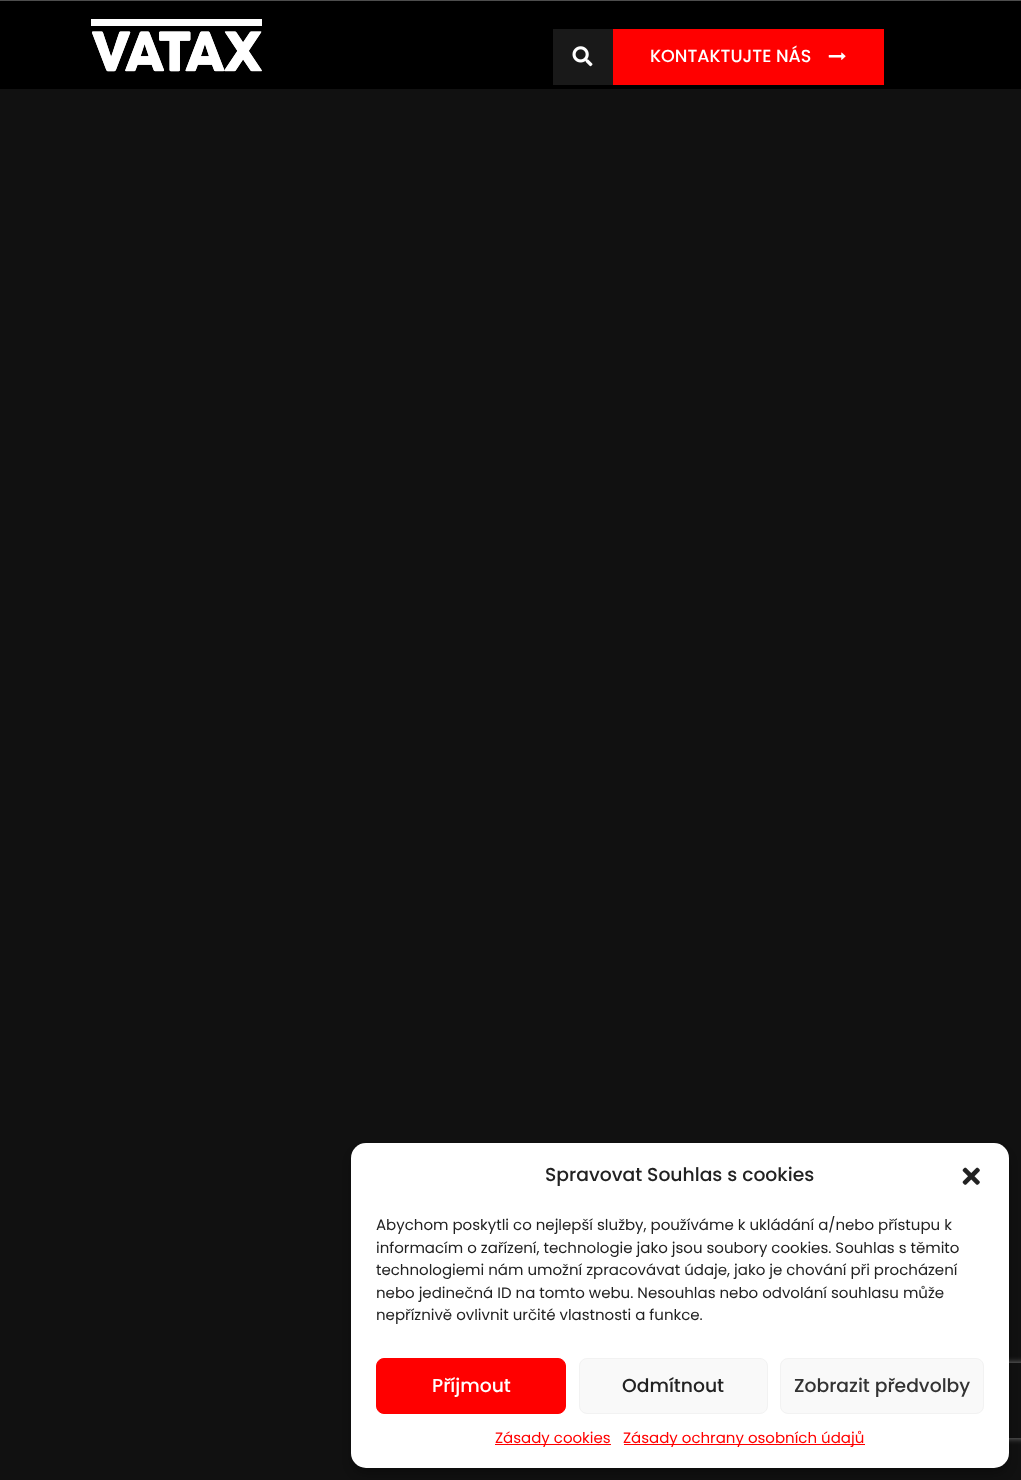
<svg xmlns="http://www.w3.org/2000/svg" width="1021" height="1480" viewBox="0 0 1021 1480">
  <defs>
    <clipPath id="clip1"><path d="M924 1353H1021V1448H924ZM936.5 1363H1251.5C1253 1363 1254 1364 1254 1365.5V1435.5C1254 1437 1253 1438 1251.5 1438H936.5C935 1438 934 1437 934 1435.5V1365.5C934 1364 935 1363 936.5 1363Z" clip-rule="evenodd"/></clipPath>
  </defs>
  <rect width="100%" height="100%" fill="rgb(17,17,17)"/>
  <rect x="0" y="1" width="1021" height="88" fill="rgb(0,0,0)"/>
  <rect x="0" y="0" width="1021" height="1" fill="rgb(77,77,77)"/>
  <image x="91" y="19" width="171" height="53" href="pic1.png"/>
  <rect x="553" y="29" width="60" height="56" fill="rgb(25,25,25)"/>
  <image x="572" y="46" width="21" height="21" href="pic2.png"/>
  <rect x="613" y="29" width="271" height="56" fill="rgb(255,0,0)"/>
  <text x="650" y="62" font-family="Poppins" font-size="17.5" font-weight="500" fill="rgb(255,255,255)">KONTAKTUJTE NÁS</text>
  <image x="828" y="52" width="18" height="8" href="pic3.png"/>
  <rect x="351" y="1150" width="658" height="325" rx="15" fill="rgba(0,0,0,0.23)" filter="blur(4px)"/>
  <g clip-path="url(#clip1)">
    <rect x="934" y="1363" width="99" height="75" rx="2.5" fill="rgb(128,128,128)" filter="blur(3px)"/>
  </g>
  <rect x="351" y="1143" width="658" height="325" rx="15" fill="rgb(255,255,255)"/>
  <text x="545" y="1181" font-family="Poppins" font-size="18.75" font-weight="500" fill="rgb(34,34,34)">Spravovat Souhlas s cookies</text>
  <image x="962" y="1167" width="18" height="18" href="pic4.png"/>
  <g font-family="Poppins" font-size="15" fill="rgb(34,34,34)">
    <text>
      <tspan x="376" y="1230">Abychom poskytli co nejlepší služby, používáme k ukládání a/nebo přístupu k</tspan>
      <tspan x="376" y="1253">informacím o zařízení, technologie jako jsou soubory cookies. Souhlas s těmito</tspan>
      <tspan x="376" y="1275">technologiemi nám umožní zpracovávat údaje, jako je chování při procházení</tspan>
      <tspan x="376" y="1298">nebo jedinečná ID na tomto webu. Nesouhlas nebo odvolání souhlasu může</tspan>
      <tspan x="376" y="1320">nepříznivě ovlivnit určité vlastnosti a funkce.</tspan>
    </text>
  </g>
  <rect x="376.5" y="1358.5" width="189" height="55" rx="7.5" fill="rgb(255,0,0)" stroke="rgb(255,0,0)"/>
  <text x="432" y="1392" font-family="Poppins" font-size="18.75" font-weight="500" fill="rgb(255,255,255)">Příjmout</text>
  <rect x="579.5" y="1358.5" width="188" height="55" rx="7.5" fill="rgb(249,249,249)" stroke="rgb(242,242,242)"/>
  <text x="622" y="1392" font-family="Poppins" font-size="18.75" font-weight="500" fill="rgb(34,34,34)">Odmítnout</text>
  <rect x="780.5" y="1358.5" width="203" height="55" rx="7.5" fill="rgb(249,249,249)" stroke="rgb(242,242,242)"/>
  <text x="794" y="1392" font-family="Poppins" font-size="18.75" font-weight="500" fill="rgb(51,51,51)">Zobrazit předvolby</text>
  <rect x="495" y="1444" width="116" height="1" fill="rgb(255,0,0)"/>
  <text x="495" y="1443" font-family="Poppins" font-size="15" fill="rgb(255,0,0)">Zásady cookies</text>
  <rect x="624" y="1444" width="241" height="1" fill="rgb(255,0,0)"/>
  <text x="623" y="1443" font-family="Poppins" font-size="15" fill="rgb(255,0,0)">Zásady ochrany osobních údajů</text>
</svg>
